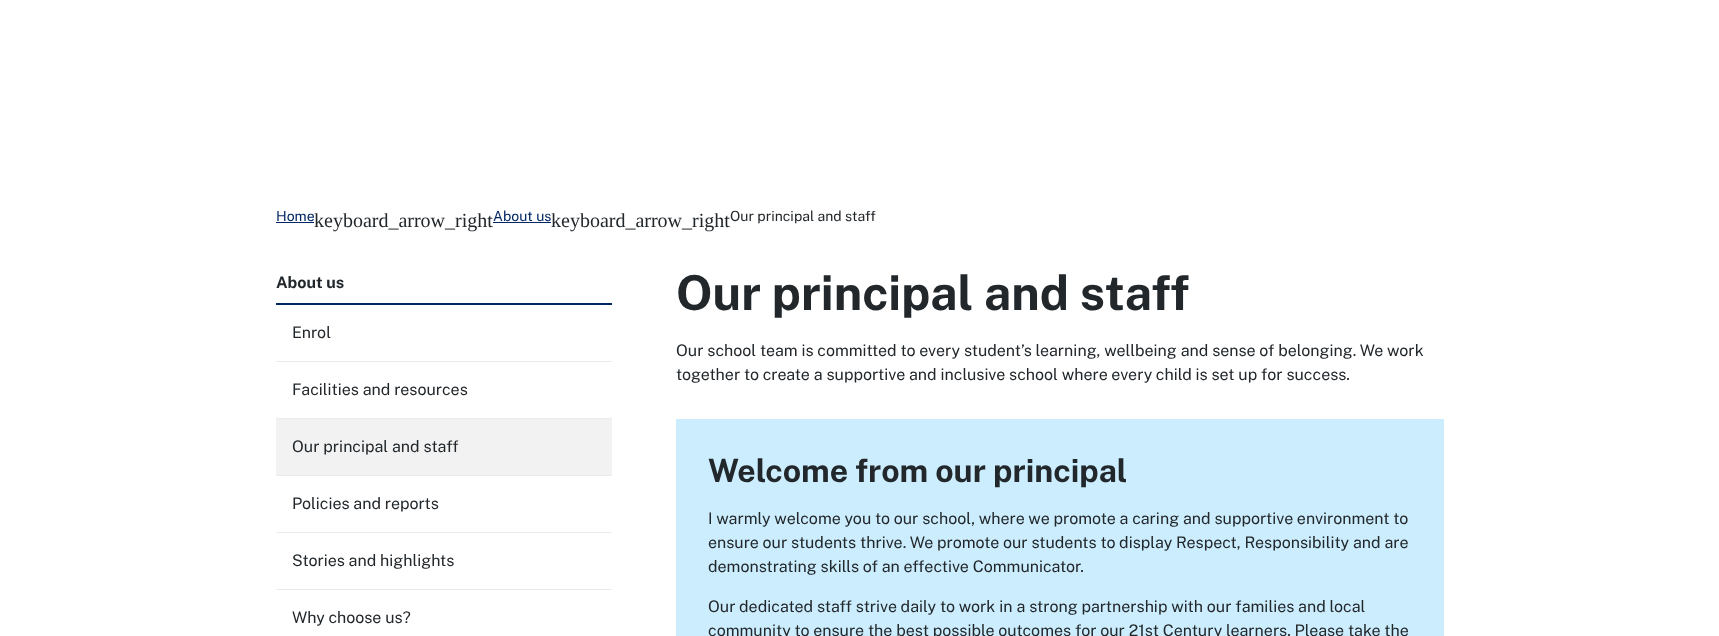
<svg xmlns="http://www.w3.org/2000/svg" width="1719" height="636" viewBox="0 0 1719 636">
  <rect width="100%" height="100%" fill="rgb(255,255,255)"/>
  <text x="276" y="221" font-family="Public Sans" font-size="14" fill="rgb(0,38,100)">Home</text>
  <rect x="276" y="222" width="38" height="1" fill="rgb(0,38,100)"/>
  <text x="314" y="227" font-family="Liberation Serif" font-size="20" fill="rgb(34,39,43)">keyboard_arrow_right</text>
  <text x="493" y="221" font-family="Public Sans" font-size="14" fill="rgb(0,38,100)">About us</text>
  <rect x="493" y="222" width="58" height="1" fill="rgb(0,38,100)"/>
  <text x="730" y="221" font-family="Public Sans" font-size="14" fill="rgb(34,39,43)">Our principal and staff</text>
  <text x="551" y="227" font-family="Liberation Serif" font-size="20" fill="rgb(34,39,43)">keyboard_arrow_right</text>
  <rect x="276" y="303" width="336" height="2" fill="rgb(0,38,100)"/>
  <text x="276" y="288" font-family="Public Sans" font-size="16" font-weight="bold" fill="rgb(34,39,43)">About us</text>
  <text x="292" y="338" font-family="Public Sans" font-size="16" fill="rgb(34,39,43)">Enrol</text>
  <rect x="276" y="361" width="336" height="1" fill="rgb(235,235,235)"/>
  <text x="292" y="395" font-family="Public Sans" font-size="16" fill="rgb(34,39,43)">Facilities and resources</text>
  <rect x="276" y="418" width="336" height="1" fill="rgb(235,235,235)"/>
  <rect x="276" y="419" width="336" height="56" fill="rgb(242,242,242)"/>
  <text x="292" y="452" font-family="Public Sans" font-size="16" fill="rgb(34,39,43)">Our principal and staff</text>
  <rect x="276" y="475" width="336" height="1" fill="rgb(235,235,235)"/>
  <text x="292" y="509" font-family="Public Sans" font-size="16" fill="rgb(34,39,43)">Policies and reports</text>
  <rect x="276" y="532" width="336" height="1" fill="rgb(235,235,235)"/>
  <text x="292" y="566" font-family="Public Sans" font-size="16" fill="rgb(34,39,43)">Stories and highlights</text>
  <rect x="276" y="589" width="336" height="1" fill="rgb(235,235,235)"/>
  <text x="292" y="623" font-family="Public Sans" font-size="16" fill="rgb(34,39,43)">Why choose us?</text>
  <text x="676" y="310" font-family="Public Sans" font-size="48" font-weight="bold" fill="rgb(34,39,43)">Our principal and staff</text>
  <g font-family="Public Sans" font-size="16" fill="rgb(34,39,43)">
    <text>
      <tspan x="676" y="356">Our school team is committed to every student’s learning, wellbeing and sense of belonging. We work</tspan>
      <tspan x="676" y="380">together to create a supportive and inclusive school where every child is set up for success.</tspan>
    </text>
  </g>
  <rect x="676" y="419" width="768" height="217" fill="rgb(203,237,253)"/>
  <text x="708" y="482" font-family="Public Sans" font-size="32" font-weight="bold" fill="rgb(34,39,43)">Welcome from our principal</text>
  <g font-family="Public Sans" font-size="16" fill="rgb(34,39,43)">
    <text>
      <tspan x="708" y="524">I warmly welcome you to our school, where we promote a caring and supportive environment to</tspan>
      <tspan x="708" y="548">ensure our students thrive. We promote our students to display Respect, Responsibility and are</tspan>
      <tspan x="708" y="572">demonstrating skills of an effective Communicator.</tspan>
    </text>
    <text>
      <tspan x="708" y="612">Our dedicated staff strive daily to work in a strong partnership with our families and local</tspan>
      <tspan x="708" y="636">community to ensure the best possible outcomes for our 21st Century learners. Please take the</tspan>
    </text>
  </g>
</svg>
